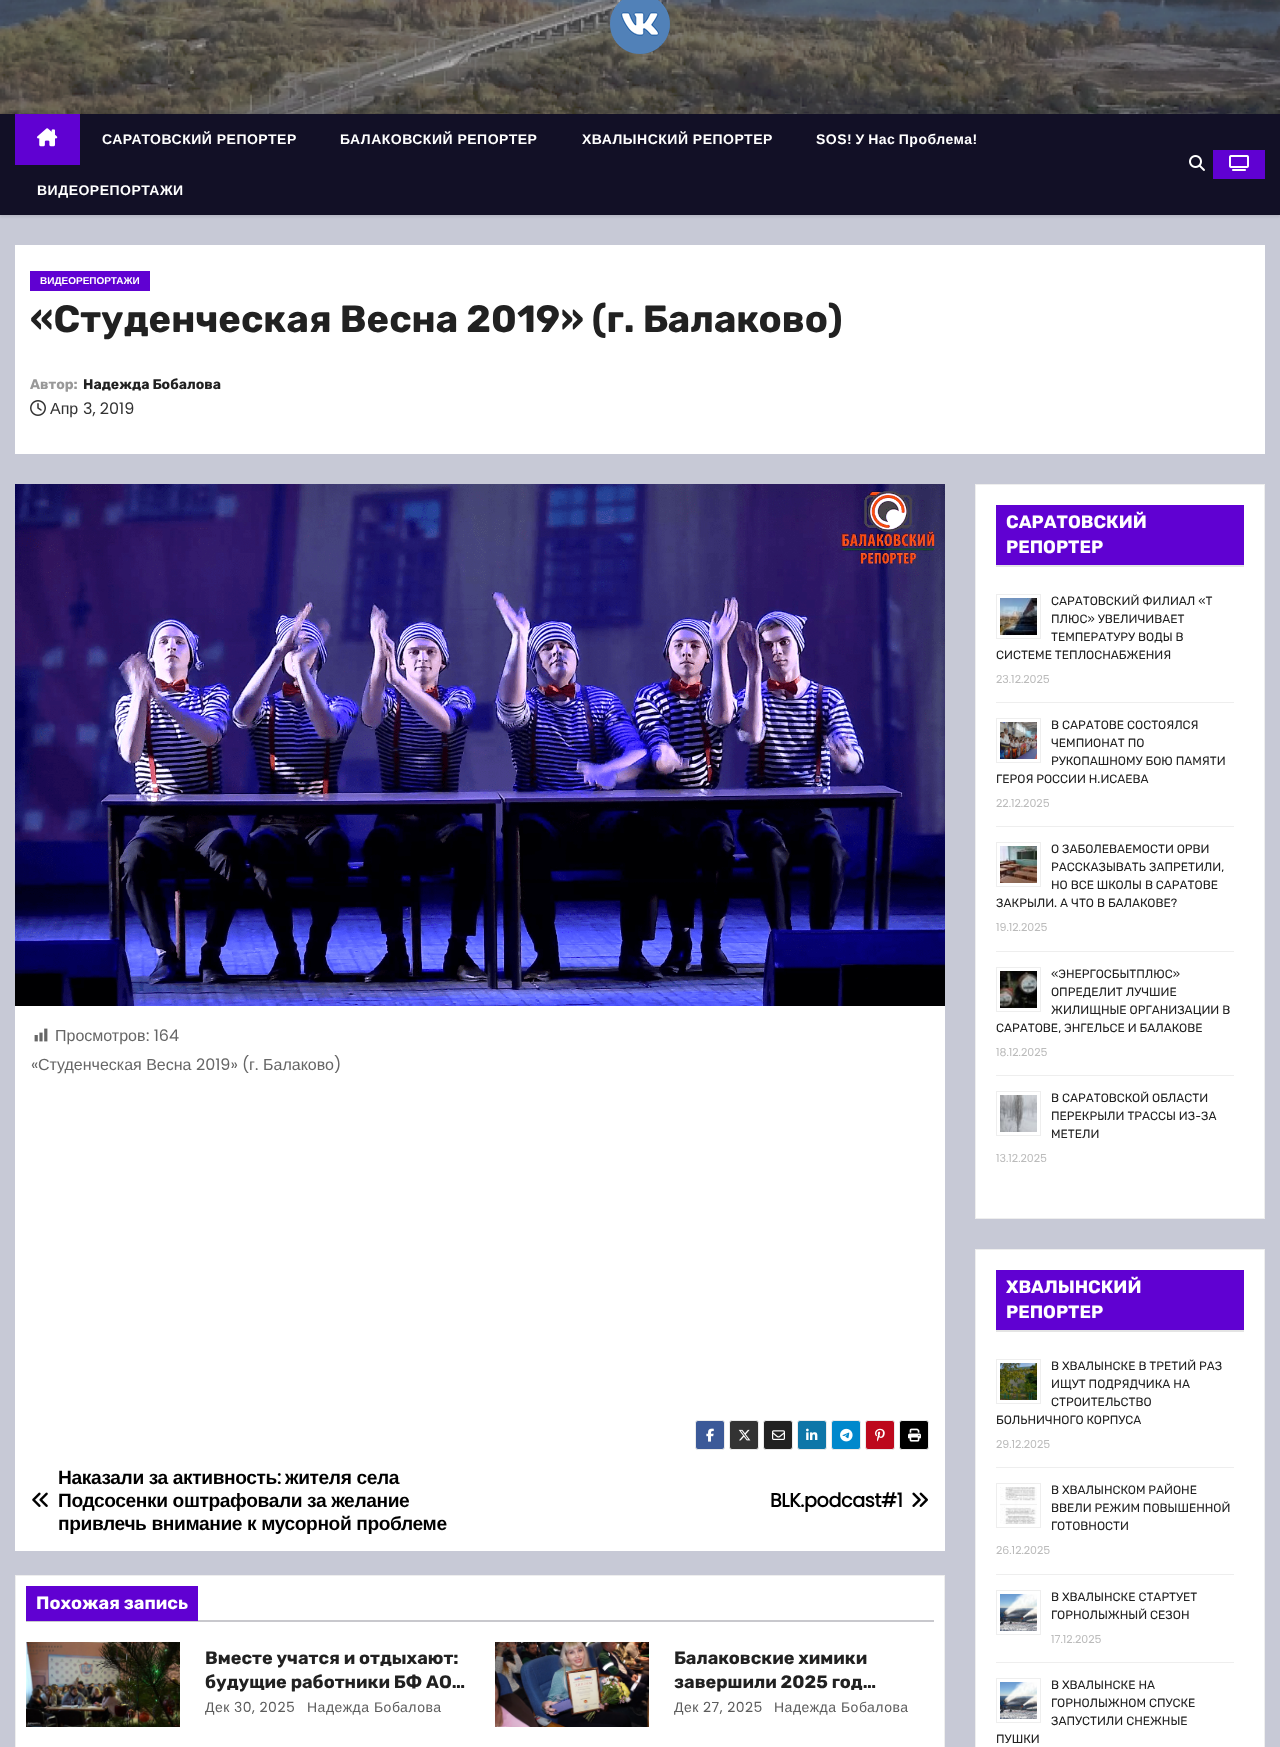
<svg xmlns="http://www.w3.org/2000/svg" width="1280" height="1747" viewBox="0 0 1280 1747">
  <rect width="100%" height="100%" fill="rgb(199,201,214)"/>
  <image x="0" y="0" width="1280" height="114" href="pic1.png"/>
  <image x="610" y="0" width="60" height="54" href="pic2.png"/>
  <rect x="0" y="116" width="1280" height="101" fill="rgba(0,0,0,0.08)" filter="blur(1px)"/>
  <rect x="0" y="114" width="1280" height="101" fill="rgb(18,16,38)"/>
  <rect x="15" y="114" width="65" height="51" fill="rgb(96,1,210)"/>
  <image x="37" y="128" width="21" height="19" href="pic3.png"/>
  <g font-family="Liberation Sans" font-size="14" font-weight="bold" letter-spacing="0.5" fill="rgb(255,255,255)">
    <text x="102" y="144">САРАТОВСКИЙ РЕПОРТЕР</text>
    <text x="340" y="144">БАЛАКОВСКИЙ РЕПОРТЕР</text>
    <text x="582" y="144">ХВАЛЫНСКИЙ РЕПОРТЕР</text>
    <text x="816" y="144" word-spacing="-1">SOS! У Нас Проблема!</text>
    <text x="37" y="195">ВИДЕОРЕПОРТАЖИ</text>
  </g>
  <image x="1189" y="155" width="16" height="16" href="pic4.png"/>
  <rect x="1213" y="150" width="52" height="29" fill="rgb(96,1,210)"/>
  <image x="1229" y="155" width="20" height="16" href="pic5.png"/>
  <rect x="15" y="245" width="1250" height="209" fill="rgb(255,255,255)"/>
  <rect x="30" y="271" width="120" height="20" fill="rgb(96,1,210)"/>
  <text x="40" y="284" font-family="Liberation Sans" font-size="10" font-weight="bold" fill="rgb(255,255,255)">ВИДЕОРЕПОРТАЖИ</text>
  <text x="30" y="332" font-family="Rubik" font-size="38" font-weight="bold" fill="rgb(33,33,33)">«Студенческая Весна 2019» (г. Балаково)</text>
  <text x="30" y="389" font-family="Rubik" font-size="14" font-weight="bold" fill="rgb(153,153,153)">Автор:</text>
  <text x="83" y="389" font-family="Rubik" font-size="14" font-weight="bold" fill="rgb(33,33,33)">Надежда Бобалова</text>
  <image x="30" y="400" width="16" height="16" href="pic6.png"/>
  <text x="50" y="414" font-family="Liberation Sans" font-size="16" fill="rgb(51,51,51)">Апр</text>
  <text x="83" y="414" font-family="Poppins" font-size="16" fill="rgb(51,51,51)">3, 2019</text>
  <image x="15" y="484" width="930" height="522" href="pic7.png"/>
  <rect x="15" y="1006" width="930" height="545" fill="rgb(255,255,255)"/>
  <image x="34" y="1028" width="14" height="14" href="pic8.png"/>
  <text x="55" y="1041" font-family="Liberation Sans" font-size="16" fill="rgb(102,102,102)">Просмотров</text>
  <g font-family="Poppins" font-size="16" fill="rgb(102,102,102)">
    <text x="146" y="1041">: 164</text>
    <text x="31" y="1070">«</text>
  </g>
  <text x="38" y="1070" font-family="Liberation Sans" font-size="16" fill="rgb(102,102,102)">Студенческая Весна</text>
  <text x="196" y="1070" font-family="Poppins" font-size="16" fill="rgb(102,102,102)">2019» (</text>
  <g font-family="Liberation Sans" font-size="16" fill="rgb(102,102,102)">
    <text x="249" y="1070">г</text>
    <text x="263" y="1070">Балаково</text>
  </g>
  <g font-family="Poppins" font-size="16" fill="rgb(102,102,102)">
    <text x="334" y="1070">)</text>
    <text x="255" y="1070">.</text>
  </g>
  <rect x="695.5" y="1420.5" width="29" height="29" rx="2.5" fill="rgb(59,89,152)" stroke="rgb(235,235,235)"/>
  <image x="706" y="1428" width="8" height="14" href="pic9.png"/>
  <rect x="729.5" y="1420.5" width="29" height="29" rx="2.5" fill="rgb(51,51,51)" stroke="rgb(235,235,235)"/>
  <image x="738" y="1429" width="13" height="12" href="pic10.png"/>
  <rect x="763.5" y="1420.5" width="29" height="29" rx="2.5" fill="rgb(34,34,34)" stroke="rgb(235,235,235)"/>
  <image x="772" y="1430" width="13" height="10" href="pic11.png"/>
  <rect x="797.5" y="1420.5" width="29" height="29" rx="2.5" fill="rgb(14,118,168)" stroke="rgb(235,235,235)"/>
  <image x="806" y="1428" width="12" height="12" href="pic12.png"/>
  <rect x="831.5" y="1420.5" width="29" height="29" rx="2.5" fill="rgb(0,136,204)" stroke="rgb(235,235,235)"/>
  <image x="840" y="1428" width="13" height="14" href="pic13.png"/>
  <rect x="865.5" y="1420.5" width="29" height="29" rx="2.5" fill="rgb(189,8,28)" stroke="rgb(235,235,235)"/>
  <image x="875" y="1428" width="10" height="14" href="pic14.png"/>
  <rect x="899.5" y="1420.5" width="29" height="29" rx="2.5" fill="rgb(0,0,0)" stroke="rgb(235,235,235)"/>
  <image x="908" y="1428" width="13" height="14" href="pic15.png"/>
  <image x="32" y="1492" width="16" height="15" href="pic16.png"/>
  <text x="58" y="1484" font-family="Liberation Sans" font-size="19.2" font-weight="bold" letter-spacing="-0.4" fill="rgb(0,0,0)">Наказали за активность</text>
  <text x="277" y="1484" font-family="Poppins" font-size="19.2" font-weight="bold" letter-spacing="-0.4" fill="rgb(0,0,0)">:</text>
  <g font-family="Liberation Sans" font-size="19.2" font-weight="bold" letter-spacing="-0.4" fill="rgb(0,0,0)">
    <text x="285" y="1484">жителя села</text>
    <text>
      <tspan x="58" y="1507">Подсосенки оштрафовали за желание</tspan>
      <tspan x="58" y="1530">привлечь внимание к мусорной проблеме</tspan>
    </text>
  </g>
  <text x="770" y="1507" font-family="Poppins" font-size="19.2" font-weight="bold" letter-spacing="-0.4" fill="rgb(0,0,0)">BLK.podcast#1</text>
  <image x="912" y="1492" width="16" height="15" href="pic17.png"/>
  <rect x="15.5" y="1575.5" width="929" height="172" fill="rgb(255,255,255)" stroke="rgb(238,238,238)"/>
  <rect x="26" y="1620" width="908" height="2" fill="rgb(200,200,205)"/>
  <rect x="26" y="1586" width="172" height="35" fill="rgb(96,1,210)"/>
  <text x="36" y="1609" font-family="Rubik" font-size="18" font-weight="bold" fill="rgb(255,255,255)">Похожая запись</text>
  <image x="26" y="1642" width="154" height="85" href="pic18.png"/>
  <g font-family="Rubik" font-size="18" font-weight="bold" fill="rgb(33,33,33)">
    <text>
      <tspan x="205" y="1664">Вместе учатся и отдыхают:</tspan>
      <tspan x="205" y="1688">будущие работники БФ АО…</tspan>
    </text>
  </g>
  <text x="205" y="1712" font-family="Liberation Sans" font-size="14" letter-spacing="0.5" fill="rgb(92,92,92)">Дек</text>
  <text x="234" y="1712" font-family="Poppins" font-size="14" letter-spacing="0.5" fill="rgb(92,92,92)">30, 2025</text>
  <text x="307" y="1712" font-family="Liberation Sans" font-size="14" letter-spacing="0.5" fill="rgb(92,92,92)">Надежда Бобалова</text>
  <image x="495" y="1642" width="154" height="85" href="pic19.png"/>
  <g font-family="Rubik" font-size="18" font-weight="bold" fill="rgb(33,33,33)">
    <text>
      <tspan x="674" y="1664">Балаковские химики</tspan>
      <tspan x="674" y="1688">завершили 2025 год…</tspan>
    </text>
  </g>
  <text x="674" y="1712" font-family="Liberation Sans" font-size="14" letter-spacing="0.5" fill="rgb(92,92,92)">Дек</text>
  <text x="703" y="1712" font-family="Poppins" font-size="14" letter-spacing="0.5" fill="rgb(92,92,92)">27, 2025</text>
  <text x="774" y="1712" font-family="Liberation Sans" font-size="14" letter-spacing="0.5" fill="rgb(92,92,92)">Надежда Бобалова</text>
  <rect x="975.5" y="484.5" width="289" height="734" fill="rgb(255,255,255)" stroke="rgb(238,238,238)"/>
  <rect x="996" y="565" width="248" height="2" fill="rgb(228,228,228)"/>
  <rect x="996" y="505" width="248" height="60" fill="rgb(96,1,210)"/>
  <g font-family="Rubik" font-size="18" font-weight="bold" fill="rgb(255,255,255)">
    <text>
      <tspan x="1006" y="528">САРАТОВСКИЙ</tspan>
      <tspan x="1006" y="553">РЕПОРТЕР</tspan>
    </text>
  </g>
  <rect x="996" y="702" width="238" height="1" fill="rgb(238,238,238)"/>
  <rect x="996.5" y="594.5" width="44" height="44" fill="none" stroke="rgb(238,238,238)"/>
  <image x="1000" y="598" width="37" height="37" href="pic20.png"/>
  <g font-family="Rubik" font-size="12" fill="rgb(33,33,33)">
    <text>
      <tspan x="1051" y="605">САРАТОВСКИЙ ФИЛИАЛ «Т</tspan>
      <tspan x="1051" y="623">ПЛЮС» УВЕЛИЧИВАЕТ</tspan>
      <tspan x="1051" y="641">ТЕМПЕРАТУРУ ВОДЫ В</tspan>
    </text>
    <text x="996" y="659">СИСТЕМЕ ТЕПЛОСНАБЖЕНИЯ</text>
  </g>
  <text x="996" y="683" font-family="Poppins" font-size="11" fill="rgb(187,187,187)">23.12.2025</text>
  <rect x="996" y="826" width="238" height="1" fill="rgb(238,238,238)"/>
  <rect x="996.5" y="718.5" width="44" height="44" fill="none" stroke="rgb(238,238,238)"/>
  <image x="1000" y="722" width="37" height="37" href="pic21.png"/>
  <g font-family="Rubik" font-size="12" fill="rgb(33,33,33)">
    <text>
      <tspan x="1051" y="729">В САРАТОВЕ СОСТОЯЛСЯ</tspan>
      <tspan x="1051" y="747">ЧЕМПИОНАТ ПО</tspan>
      <tspan x="1051" y="765">РУКОПАШНОМУ БОЮ ПАМЯТИ</tspan>
    </text>
    <text x="996" y="783">ГЕРОЯ РОССИИ Н.ИСАЕВА</text>
  </g>
  <text x="996" y="807" font-family="Poppins" font-size="11" fill="rgb(187,187,187)">22.12.2025</text>
  <rect x="996" y="951" width="238" height="1" fill="rgb(238,238,238)"/>
  <rect x="996.5" y="842.5" width="44" height="44" fill="none" stroke="rgb(238,238,238)"/>
  <image x="1000" y="846" width="37" height="37" href="pic22.png"/>
  <g font-family="Rubik" font-size="12" fill="rgb(33,33,33)">
    <text>
      <tspan x="1051" y="853">О ЗАБОЛЕВАЕМОСТИ ОРВИ</tspan>
      <tspan x="1051" y="871">РАССКАЗЫВАТЬ ЗАПРЕТИЛИ,</tspan>
      <tspan x="1051" y="889">НО ВСЕ ШКОЛЫ В САРАТОВЕ</tspan>
    </text>
    <text x="996" y="907">ЗАКРЫЛИ. А ЧТО В БАЛАКОВЕ?</text>
  </g>
  <text x="996" y="931" font-family="Poppins" font-size="11" fill="rgb(187,187,187)">19.12.2025</text>
  <rect x="996" y="1075" width="238" height="1" fill="rgb(238,238,238)"/>
  <rect x="996.5" y="967.5" width="44" height="44" fill="none" stroke="rgb(238,238,238)"/>
  <image x="1000" y="971" width="37" height="37" href="pic23.png"/>
  <g font-family="Rubik" font-size="12" fill="rgb(33,33,33)">
    <text>
      <tspan x="1051" y="978">«ЭНЕРГОСБЫТПЛЮС»</tspan>
      <tspan x="1051" y="996">ОПРЕДЕЛИТ ЛУЧШИЕ</tspan>
      <tspan x="1051" y="1014">ЖИЛИЩНЫЕ ОРГАНИЗАЦИИ В</tspan>
    </text>
    <text x="996" y="1032">САРАТОВЕ, ЭНГЕЛЬСЕ И БАЛАКОВЕ</text>
  </g>
  <text x="996" y="1056" font-family="Poppins" font-size="11" fill="rgb(187,187,187)">18.12.2025</text>
  <rect x="996.5" y="1091.5" width="44" height="44" fill="none" stroke="rgb(238,238,238)"/>
  <image x="1000" y="1095" width="37" height="37" href="pic24.png"/>
  <g font-family="Rubik" font-size="12" fill="rgb(33,33,33)">
    <text>
      <tspan x="1051" y="1102">В САРАТОВСКОЙ ОБЛАСТИ</tspan>
      <tspan x="1051" y="1120">ПЕРЕКРЫЛИ ТРАССЫ ИЗ-ЗА</tspan>
      <tspan x="1051" y="1138">МЕТЕЛИ</tspan>
    </text>
  </g>
  <text x="996" y="1162" font-family="Poppins" font-size="11" fill="rgb(187,187,187)">13.12.2025</text>
  <rect x="975.5" y="1249.5" width="289" height="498" fill="rgb(255,255,255)" stroke="rgb(238,238,238)"/>
  <rect x="996" y="1330" width="248" height="2" fill="rgb(228,228,228)"/>
  <rect x="996" y="1270" width="248" height="60" fill="rgb(96,1,210)"/>
  <g font-family="Rubik" font-size="18" font-weight="bold" fill="rgb(255,255,255)">
    <text>
      <tspan x="1006" y="1293">ХВАЛЫНСКИЙ</tspan>
      <tspan x="1006" y="1318">РЕПОРТЕР</tspan>
    </text>
  </g>
  <rect x="996" y="1467" width="238" height="1" fill="rgb(238,238,238)"/>
  <rect x="996.5" y="1359.5" width="44" height="44" fill="none" stroke="rgb(238,238,238)"/>
  <image x="1000" y="1363" width="37" height="37" href="pic25.png"/>
  <g font-family="Rubik" font-size="12" fill="rgb(33,33,33)">
    <text>
      <tspan x="1051" y="1370">В ХВАЛЫНСКЕ В ТРЕТИЙ РАЗ</tspan>
      <tspan x="1051" y="1388">ИЩУТ ПОДРЯДЧИКА НА</tspan>
      <tspan x="1051" y="1406">СТРОИТЕЛЬСТВО</tspan>
    </text>
    <text x="996" y="1424">БОЛЬНИЧНОГО КОРПУСА</text>
  </g>
  <text x="996" y="1448" font-family="Poppins" font-size="11" fill="rgb(187,187,187)">29.12.2025</text>
  <rect x="996" y="1574" width="238" height="1" fill="rgb(238,238,238)"/>
  <rect x="996.5" y="1483.5" width="44" height="44" fill="none" stroke="rgb(238,238,238)"/>
  <image x="1000" y="1487" width="37" height="37" href="pic26.png"/>
  <g font-family="Rubik" font-size="12" fill="rgb(33,33,33)">
    <text>
      <tspan x="1051" y="1494">В ХВАЛЫНСКОМ РАЙОНЕ</tspan>
      <tspan x="1051" y="1512">ВВЕЛИ РЕЖИМ ПОВЫШЕННОЙ</tspan>
      <tspan x="1051" y="1530">ГОТОВНОСТИ</tspan>
    </text>
  </g>
  <text x="996" y="1554" font-family="Poppins" font-size="11" fill="rgb(187,187,187)">26.12.2025</text>
  <rect x="996" y="1662" width="238" height="1" fill="rgb(238,238,238)"/>
  <rect x="996.5" y="1590.5" width="44" height="44" fill="none" stroke="rgb(238,238,238)"/>
  <image x="1000" y="1594" width="37" height="37" href="pic27.png"/>
  <g font-family="Rubik" font-size="12" fill="rgb(33,33,33)">
    <text>
      <tspan x="1051" y="1601">В ХВАЛЫНСКЕ СТАРТУЕТ</tspan>
      <tspan x="1051" y="1619">ГОРНОЛЫЖНЫЙ СЕЗОН</tspan>
    </text>
  </g>
  <text x="1051" y="1643" font-family="Poppins" font-size="11" fill="rgb(187,187,187)">17.12.2025</text>
  <rect x="996.5" y="1678.5" width="44" height="44" fill="none" stroke="rgb(238,238,238)"/>
  <image x="1000" y="1682" width="37" height="37" href="pic28.png"/>
  <g font-family="Rubik" font-size="12" fill="rgb(33,33,33)">
    <text>
      <tspan x="1051" y="1689">В ХВАЛЫНСКЕ НА</tspan>
      <tspan x="1051" y="1707">ГОРНОЛЫЖНОМ СПУСКЕ</tspan>
      <tspan x="1051" y="1725">ЗАПУСТИЛИ СНЕЖНЫЕ</tspan>
    </text>
    <text x="996" y="1743">ПУШКИ</text>
  </g>
</svg>
